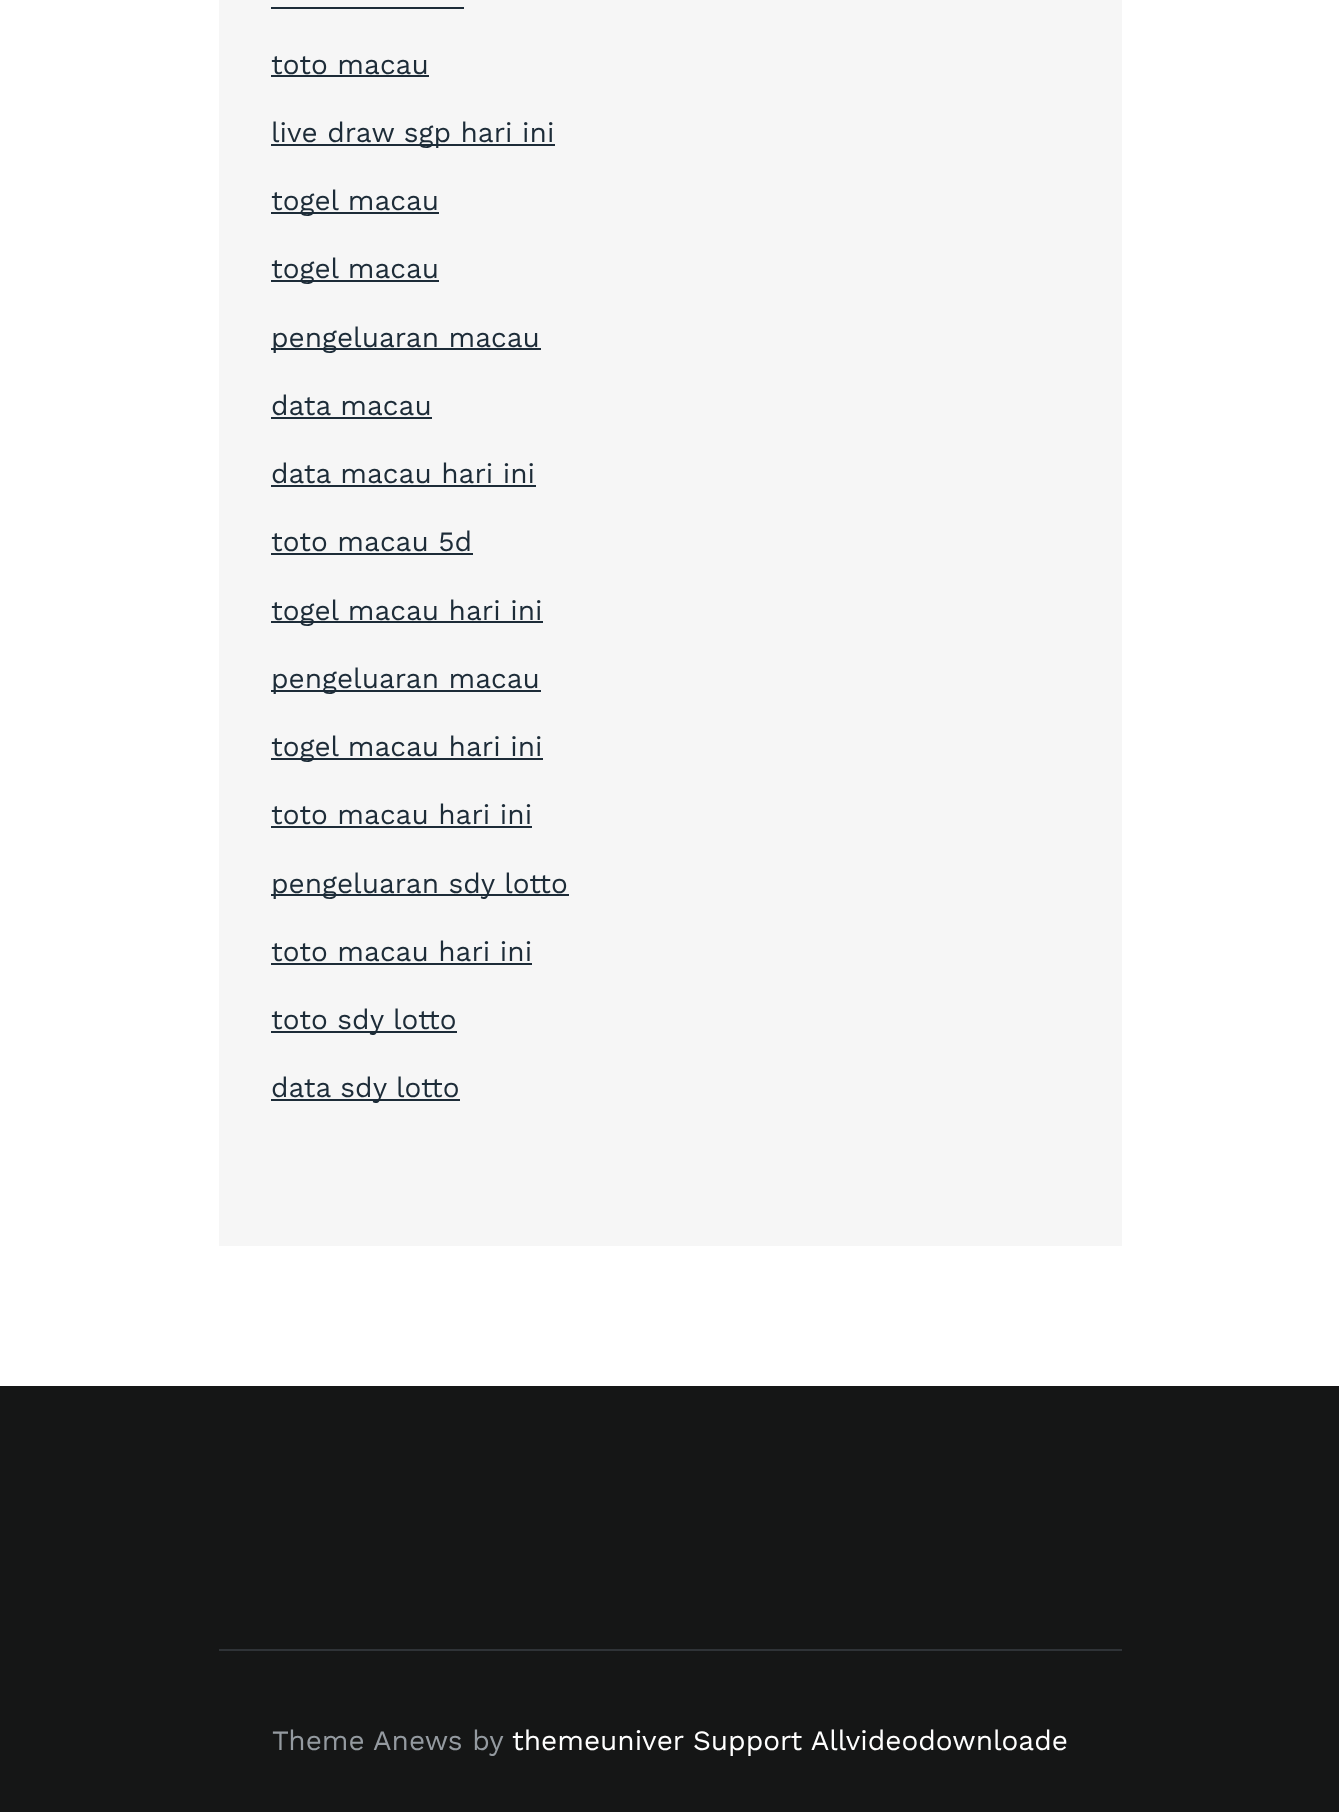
<svg xmlns="http://www.w3.org/2000/svg" width="1339" height="1812" viewBox="0 0 1339 1812">
  <rect width="100%" height="100%" fill="rgb(255,255,255)"/>
  <rect x="219" y="0" width="903" height="1246" fill="rgb(246,246,246)"/>
  <rect x="271" y="7" width="193" height="2" fill="rgb(29,44,56)"/>
  <text x="271" y="74" font-family="Work Sans" font-size="28" fill="rgb(29,44,56)">toto macau</text>
  <rect x="271" y="75" width="158" height="2" fill="rgb(29,44,56)"/>
  <rect x="271" y="144" width="284" height="2" fill="rgb(29,44,56)"/>
  <text x="271" y="142" font-family="Work Sans" font-size="28" fill="rgb(29,44,56)">live draw sgp hari ini</text>
  <rect x="271" y="212" width="168" height="2" fill="rgb(29,44,56)"/>
  <text x="271" y="210" font-family="Work Sans" font-size="28" fill="rgb(29,44,56)">togel macau</text>
  <rect x="271" y="280" width="168" height="2" fill="rgb(29,44,56)"/>
  <text x="271" y="278" font-family="Work Sans" font-size="28" fill="rgb(29,44,56)">togel macau</text>
  <rect x="271" y="348" width="270" height="2" fill="rgb(29,44,56)"/>
  <g font-family="Work Sans" font-size="28" fill="rgb(29,44,56)">
    <text x="271" y="347">pengeluaran macau</text>
    <text x="271" y="415">data macau</text>
  </g>
  <rect x="271" y="417" width="161" height="2" fill="rgb(29,44,56)"/>
  <text x="271" y="483" font-family="Work Sans" font-size="28" fill="rgb(29,44,56)">data macau hari ini</text>
  <rect x="271" y="485" width="265" height="2" fill="rgb(29,44,56)"/>
  <text x="271" y="551" font-family="Work Sans" font-size="28" fill="rgb(29,44,56)">toto macau 5d</text>
  <rect x="271" y="553" width="202" height="2" fill="rgb(29,44,56)"/>
  <rect x="271" y="621" width="272" height="2" fill="rgb(29,44,56)"/>
  <text x="271" y="620" font-family="Work Sans" font-size="28" fill="rgb(29,44,56)">togel macau hari ini</text>
  <rect x="271" y="690" width="270" height="2" fill="rgb(29,44,56)"/>
  <text x="271" y="688" font-family="Work Sans" font-size="28" fill="rgb(29,44,56)">pengeluaran macau</text>
  <rect x="271" y="758" width="272" height="2" fill="rgb(29,44,56)"/>
  <g font-family="Work Sans" font-size="28" fill="rgb(29,44,56)">
    <text x="271" y="756">togel macau hari ini</text>
    <text x="271" y="824">toto macau hari ini</text>
  </g>
  <rect x="271" y="826" width="261" height="2" fill="rgb(29,44,56)"/>
  <rect x="271" y="894" width="298" height="2" fill="rgb(29,44,56)"/>
  <g font-family="Work Sans" font-size="28" fill="rgb(29,44,56)">
    <text x="271" y="893">pengeluaran sdy lotto</text>
    <text x="271" y="961">toto macau hari ini</text>
  </g>
  <rect x="271" y="963" width="261" height="2" fill="rgb(29,44,56)"/>
  <rect x="271" y="1031" width="186" height="2" fill="rgb(29,44,56)"/>
  <text x="271" y="1029" font-family="Work Sans" font-size="28" fill="rgb(29,44,56)">toto sdy lotto</text>
  <rect x="271" y="1099" width="189" height="2" fill="rgb(29,44,56)"/>
  <text x="271" y="1097" font-family="Work Sans" font-size="28" fill="rgb(29,44,56)">data sdy lotto</text>
  <rect x="0" y="1386" width="1339" height="426" fill="rgb(21,22,22)"/>
  <rect x="219" y="1649" width="903" height="2" fill="rgb(47,51,55)"/>
  <text x="272" y="1750" font-family="Work Sans" font-size="28" fill="rgb(148,154,160)">Theme Anews by</text>
  <g font-family="Work Sans" font-size="28" fill="rgb(255,255,255)">
    <text x="512" y="1750">themeuniver</text>
    <text x="693" y="1750">Support Allvideodownloade</text>
  </g>
</svg>
